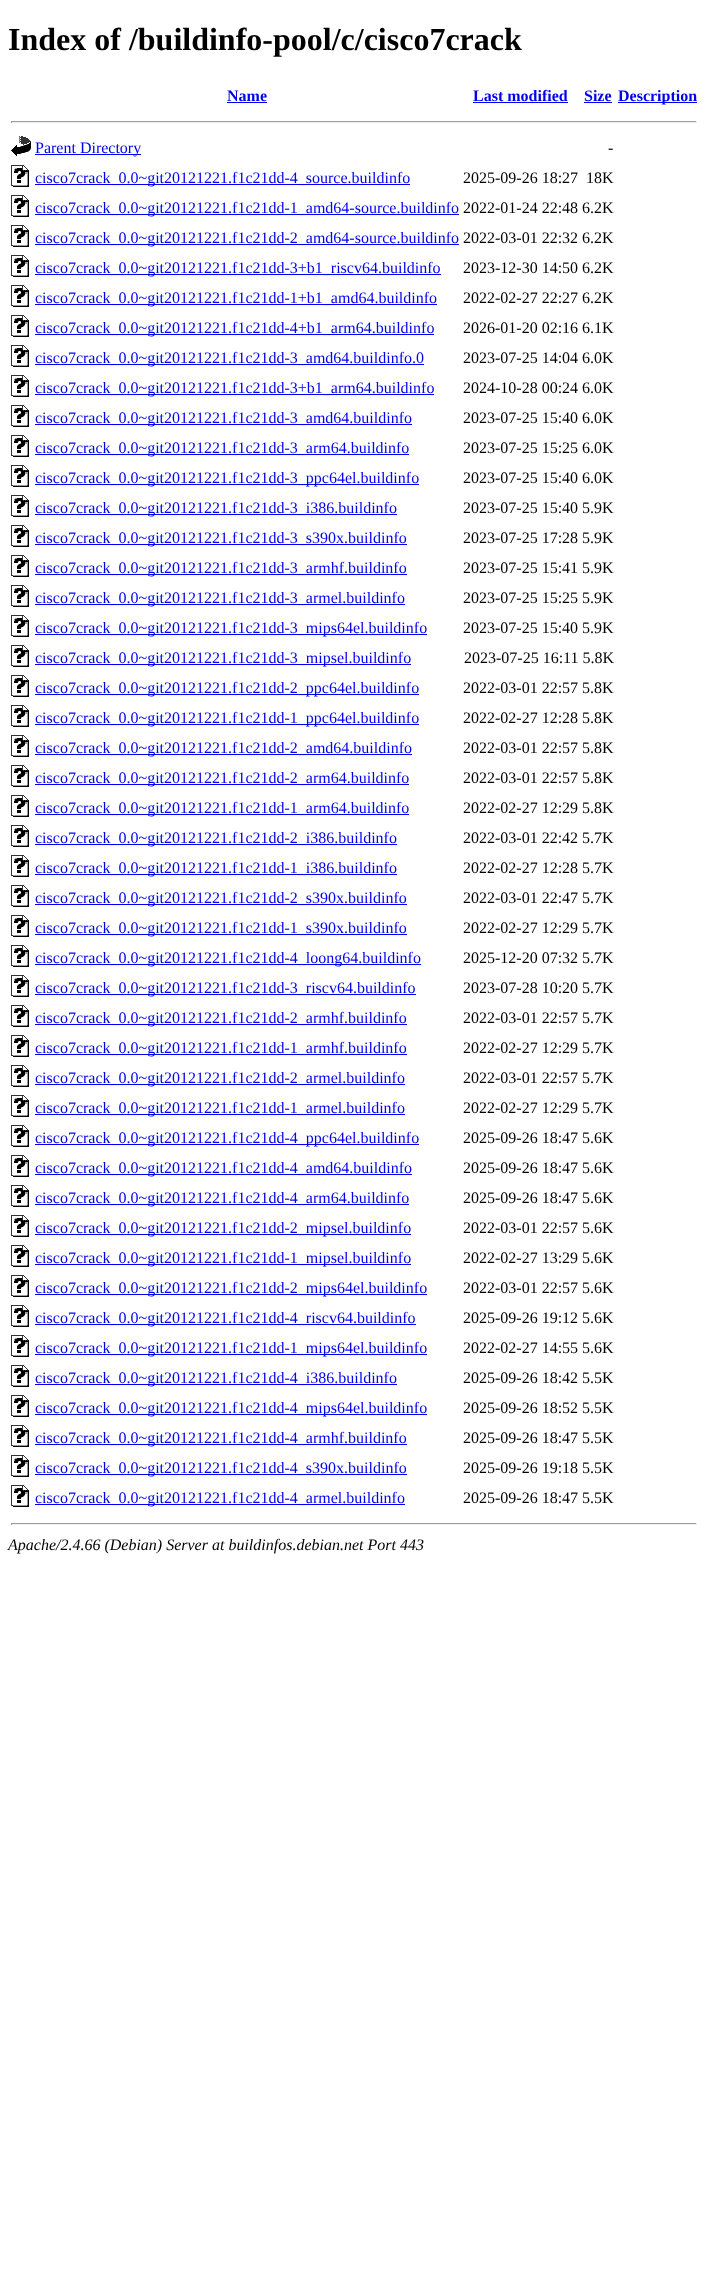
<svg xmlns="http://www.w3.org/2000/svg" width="727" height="2289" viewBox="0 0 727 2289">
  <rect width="100%" height="100%" fill="rgb(255,255,255)"/>
  <text x="8" y="50" font-family="Liberation Serif" font-size="32" font-weight="bold" fill="rgb(0,0,0)">Index of /buildinfo-pool/c/cisco7crack</text>
  <text x="227" y="101" font-family="Liberation Serif" font-size="16" font-weight="bold" fill="rgb(0,0,238)">Name</text>
  <rect x="227" y="102" width="40" height="1" fill="rgb(0,0,238)"/>
  <text x="473" y="101" font-family="Liberation Serif" font-size="16" font-weight="bold" fill="rgb(0,0,238)">Last modified</text>
  <rect x="473" y="102" width="95" height="1" fill="rgb(0,0,238)"/>
  <text x="584" y="101" font-family="Liberation Serif" font-size="16" font-weight="bold" fill="rgb(0,0,238)">Size</text>
  <rect x="584" y="102" width="28" height="1" fill="rgb(0,0,238)"/>
  <rect x="618" y="102" width="79" height="1" fill="rgb(0,0,238)"/>
  <text x="618" y="101" font-family="Liberation Serif" font-size="16" font-weight="bold" fill="rgb(0,0,238)">Description</text>
  <rect x="11" y="121" width="686" height="1" fill="rgb(159,159,159)"/>
  <rect x="696" y="121" width="1" height="2" fill="rgb(238,238,238)"/>
  <rect x="11" y="122" width="686" height="1" fill="rgb(238,238,238)"/>
  <rect x="11" y="121" width="1" height="2" fill="rgb(159,159,159)"/>
  <image x="11" y="136" width="20" height="20" href="pic1.png"/>
  <rect x="35" y="154" width="106" height="1" fill="rgb(0,0,238)"/>
  <text x="35" y="153" font-family="Liberation Serif" font-size="16" fill="rgb(0,0,238)">Parent Directory</text>
  <text x="608" y="153" font-family="Liberation Serif" font-size="16" fill="rgb(0,0,0)">-</text>
  <image x="11" y="165" width="18" height="22" href="pic2.png"/>
  <rect x="35" y="184" width="375" height="1" fill="rgb(0,0,238)"/>
  <text x="35" y="183" font-family="Liberation Serif" font-size="16" fill="rgb(0,0,238)">cisco7crack_0.0~git20121221.f1c21dd-4_source.buildinfo</text>
  <g font-family="Liberation Serif" font-size="16" fill="rgb(0,0,0)">
    <text x="463" y="183">2025-09-26 18:27</text>
    <text x="586" y="183">18K</text>
  </g>
  <image x="11" y="195" width="18" height="22" href="pic2.png"/>
  <rect x="35" y="214" width="424" height="1" fill="rgb(0,0,238)"/>
  <text x="35" y="213" font-family="Liberation Serif" font-size="16" fill="rgb(0,0,238)">cisco7crack_0.0~git20121221.f1c21dd-1_amd64-source.buildinfo</text>
  <text x="463" y="213" font-family="Liberation Serif" font-size="16" fill="rgb(0,0,0)">2022-01-24 22:48 6.2K</text>
  <image x="11" y="225" width="18" height="22" href="pic2.png"/>
  <rect x="35" y="244" width="424" height="1" fill="rgb(0,0,238)"/>
  <text x="35" y="243" font-family="Liberation Serif" font-size="16" fill="rgb(0,0,238)">cisco7crack_0.0~git20121221.f1c21dd-2_amd64-source.buildinfo</text>
  <text x="463" y="243" font-family="Liberation Serif" font-size="16" fill="rgb(0,0,0)">2022-03-01 22:32 6.2K</text>
  <image x="11" y="255" width="18" height="22" href="pic2.png"/>
  <rect x="35" y="274" width="406" height="1" fill="rgb(0,0,238)"/>
  <text x="35" y="273" font-family="Liberation Serif" font-size="16" fill="rgb(0,0,238)">cisco7crack_0.0~git20121221.f1c21dd-3+b1_riscv64.buildinfo</text>
  <text x="463" y="273" font-family="Liberation Serif" font-size="16" fill="rgb(0,0,0)">2023-12-30 14:50 6.2K</text>
  <image x="11" y="285" width="18" height="22" href="pic2.png"/>
  <rect x="35" y="304" width="402" height="1" fill="rgb(0,0,238)"/>
  <text x="35" y="303" font-family="Liberation Serif" font-size="16" fill="rgb(0,0,238)">cisco7crack_0.0~git20121221.f1c21dd-1+b1_amd64.buildinfo</text>
  <text x="463" y="303" font-family="Liberation Serif" font-size="16" fill="rgb(0,0,0)">2022-02-27 22:27 6.2K</text>
  <image x="11" y="315" width="18" height="22" href="pic2.png"/>
  <rect x="35" y="334" width="399" height="1" fill="rgb(0,0,238)"/>
  <text x="35" y="333" font-family="Liberation Serif" font-size="16" fill="rgb(0,0,238)">cisco7crack_0.0~git20121221.f1c21dd-4+b1_arm64.buildinfo</text>
  <text x="463" y="333" font-family="Liberation Serif" font-size="16" fill="rgb(0,0,0)">2026-01-20 02:16 6.1K</text>
  <image x="11" y="345" width="18" height="22" href="pic2.png"/>
  <rect x="35" y="364" width="389" height="1" fill="rgb(0,0,238)"/>
  <text x="35" y="363" font-family="Liberation Serif" font-size="16" fill="rgb(0,0,238)">cisco7crack_0.0~git20121221.f1c21dd-3_amd64.buildinfo.0</text>
  <text x="463" y="363" font-family="Liberation Serif" font-size="16" fill="rgb(0,0,0)">2023-07-25 14:04 6.0K</text>
  <image x="11" y="375" width="18" height="22" href="pic2.png"/>
  <rect x="35" y="394" width="399" height="1" fill="rgb(0,0,238)"/>
  <text x="35" y="393" font-family="Liberation Serif" font-size="16" fill="rgb(0,0,238)">cisco7crack_0.0~git20121221.f1c21dd-3+b1_arm64.buildinfo</text>
  <text x="463" y="393" font-family="Liberation Serif" font-size="16" fill="rgb(0,0,0)">2024-10-28 00:24 6.0K</text>
  <image x="11" y="405" width="18" height="22" href="pic2.png"/>
  <rect x="35" y="424" width="377" height="1" fill="rgb(0,0,238)"/>
  <text x="35" y="423" font-family="Liberation Serif" font-size="16" fill="rgb(0,0,238)">cisco7crack_0.0~git20121221.f1c21dd-3_amd64.buildinfo</text>
  <text x="463" y="423" font-family="Liberation Serif" font-size="16" fill="rgb(0,0,0)">2023-07-25 15:40 6.0K</text>
  <image x="11" y="435" width="18" height="22" href="pic2.png"/>
  <rect x="35" y="454" width="374" height="1" fill="rgb(0,0,238)"/>
  <text x="35" y="453" font-family="Liberation Serif" font-size="16" fill="rgb(0,0,238)">cisco7crack_0.0~git20121221.f1c21dd-3_arm64.buildinfo</text>
  <text x="463" y="453" font-family="Liberation Serif" font-size="16" fill="rgb(0,0,0)">2023-07-25 15:25 6.0K</text>
  <image x="11" y="465" width="18" height="22" href="pic2.png"/>
  <rect x="35" y="484" width="384" height="1" fill="rgb(0,0,238)"/>
  <text x="35" y="483" font-family="Liberation Serif" font-size="16" fill="rgb(0,0,238)">cisco7crack_0.0~git20121221.f1c21dd-3_ppc64el.buildinfo</text>
  <text x="463" y="483" font-family="Liberation Serif" font-size="16" fill="rgb(0,0,0)">2023-07-25 15:40 6.0K</text>
  <image x="11" y="495" width="18" height="22" href="pic2.png"/>
  <rect x="35" y="514" width="362" height="1" fill="rgb(0,0,238)"/>
  <text x="35" y="513" font-family="Liberation Serif" font-size="16" fill="rgb(0,0,238)">cisco7crack_0.0~git20121221.f1c21dd-3_i386.buildinfo</text>
  <text x="463" y="513" font-family="Liberation Serif" font-size="16" fill="rgb(0,0,0)">2023-07-25 15:40 5.9K</text>
  <image x="11" y="525" width="18" height="22" href="pic2.png"/>
  <rect x="35" y="544" width="372" height="1" fill="rgb(0,0,238)"/>
  <text x="35" y="543" font-family="Liberation Serif" font-size="16" fill="rgb(0,0,238)">cisco7crack_0.0~git20121221.f1c21dd-3_s390x.buildinfo</text>
  <text x="463" y="543" font-family="Liberation Serif" font-size="16" fill="rgb(0,0,0)">2023-07-25 17:28 5.9K</text>
  <image x="11" y="555" width="18" height="22" href="pic2.png"/>
  <rect x="35" y="574" width="372" height="1" fill="rgb(0,0,238)"/>
  <text x="35" y="573" font-family="Liberation Serif" font-size="16" fill="rgb(0,0,238)">cisco7crack_0.0~git20121221.f1c21dd-3_armhf.buildinfo</text>
  <text x="463" y="573" font-family="Liberation Serif" font-size="16" fill="rgb(0,0,0)">2023-07-25 15:41 5.9K</text>
  <image x="11" y="585" width="18" height="22" href="pic2.png"/>
  <rect x="35" y="604" width="370" height="1" fill="rgb(0,0,238)"/>
  <text x="35" y="603" font-family="Liberation Serif" font-size="16" fill="rgb(0,0,238)">cisco7crack_0.0~git20121221.f1c21dd-3_armel.buildinfo</text>
  <text x="463" y="603" font-family="Liberation Serif" font-size="16" fill="rgb(0,0,0)">2023-07-25 15:25 5.9K</text>
  <image x="11" y="615" width="18" height="22" href="pic2.png"/>
  <rect x="35" y="634" width="392" height="1" fill="rgb(0,0,238)"/>
  <text x="35" y="633" font-family="Liberation Serif" font-size="16" fill="rgb(0,0,238)">cisco7crack_0.0~git20121221.f1c21dd-3_mips64el.buildinfo</text>
  <text x="463" y="633" font-family="Liberation Serif" font-size="16" fill="rgb(0,0,0)">2023-07-25 15:40 5.9K</text>
  <image x="11" y="645" width="18" height="22" href="pic2.png"/>
  <rect x="35" y="664" width="376" height="1" fill="rgb(0,0,238)"/>
  <text x="35" y="663" font-family="Liberation Serif" font-size="16" fill="rgb(0,0,238)">cisco7crack_0.0~git20121221.f1c21dd-3_mipsel.buildinfo</text>
  <text x="464" y="663" font-family="Liberation Serif" font-size="16" fill="rgb(0,0,0)">2023-07-25 16:11 5.8K</text>
  <image x="11" y="675" width="18" height="22" href="pic2.png"/>
  <rect x="35" y="694" width="384" height="1" fill="rgb(0,0,238)"/>
  <text x="35" y="693" font-family="Liberation Serif" font-size="16" fill="rgb(0,0,238)">cisco7crack_0.0~git20121221.f1c21dd-2_ppc64el.buildinfo</text>
  <text x="463" y="693" font-family="Liberation Serif" font-size="16" fill="rgb(0,0,0)">2022-03-01 22:57 5.8K</text>
  <image x="11" y="705" width="18" height="22" href="pic2.png"/>
  <rect x="35" y="724" width="384" height="1" fill="rgb(0,0,238)"/>
  <text x="35" y="723" font-family="Liberation Serif" font-size="16" fill="rgb(0,0,238)">cisco7crack_0.0~git20121221.f1c21dd-1_ppc64el.buildinfo</text>
  <text x="463" y="723" font-family="Liberation Serif" font-size="16" fill="rgb(0,0,0)">2022-02-27 12:28 5.8K</text>
  <image x="11" y="735" width="18" height="22" href="pic2.png"/>
  <rect x="35" y="754" width="377" height="1" fill="rgb(0,0,238)"/>
  <text x="35" y="753" font-family="Liberation Serif" font-size="16" fill="rgb(0,0,238)">cisco7crack_0.0~git20121221.f1c21dd-2_amd64.buildinfo</text>
  <text x="463" y="753" font-family="Liberation Serif" font-size="16" fill="rgb(0,0,0)">2022-03-01 22:57 5.8K</text>
  <image x="11" y="765" width="18" height="22" href="pic2.png"/>
  <rect x="35" y="784" width="374" height="1" fill="rgb(0,0,238)"/>
  <text x="35" y="783" font-family="Liberation Serif" font-size="16" fill="rgb(0,0,238)">cisco7crack_0.0~git20121221.f1c21dd-2_arm64.buildinfo</text>
  <text x="463" y="783" font-family="Liberation Serif" font-size="16" fill="rgb(0,0,0)">2022-03-01 22:57 5.8K</text>
  <image x="11" y="795" width="18" height="22" href="pic2.png"/>
  <rect x="35" y="814" width="374" height="1" fill="rgb(0,0,238)"/>
  <text x="35" y="813" font-family="Liberation Serif" font-size="16" fill="rgb(0,0,238)">cisco7crack_0.0~git20121221.f1c21dd-1_arm64.buildinfo</text>
  <text x="463" y="813" font-family="Liberation Serif" font-size="16" fill="rgb(0,0,0)">2022-02-27 12:29 5.8K</text>
  <image x="11" y="825" width="18" height="22" href="pic2.png"/>
  <rect x="35" y="844" width="362" height="1" fill="rgb(0,0,238)"/>
  <text x="35" y="843" font-family="Liberation Serif" font-size="16" fill="rgb(0,0,238)">cisco7crack_0.0~git20121221.f1c21dd-2_i386.buildinfo</text>
  <text x="463" y="843" font-family="Liberation Serif" font-size="16" fill="rgb(0,0,0)">2022-03-01 22:42 5.7K</text>
  <image x="11" y="855" width="18" height="22" href="pic2.png"/>
  <rect x="35" y="874" width="362" height="1" fill="rgb(0,0,238)"/>
  <text x="35" y="873" font-family="Liberation Serif" font-size="16" fill="rgb(0,0,238)">cisco7crack_0.0~git20121221.f1c21dd-1_i386.buildinfo</text>
  <text x="463" y="873" font-family="Liberation Serif" font-size="16" fill="rgb(0,0,0)">2022-02-27 12:28 5.7K</text>
  <image x="11" y="885" width="18" height="22" href="pic2.png"/>
  <rect x="35" y="904" width="372" height="1" fill="rgb(0,0,238)"/>
  <text x="35" y="903" font-family="Liberation Serif" font-size="16" fill="rgb(0,0,238)">cisco7crack_0.0~git20121221.f1c21dd-2_s390x.buildinfo</text>
  <text x="463" y="903" font-family="Liberation Serif" font-size="16" fill="rgb(0,0,0)">2022-03-01 22:47 5.7K</text>
  <image x="11" y="915" width="18" height="22" href="pic2.png"/>
  <rect x="35" y="934" width="372" height="1" fill="rgb(0,0,238)"/>
  <text x="35" y="933" font-family="Liberation Serif" font-size="16" fill="rgb(0,0,238)">cisco7crack_0.0~git20121221.f1c21dd-1_s390x.buildinfo</text>
  <text x="463" y="933" font-family="Liberation Serif" font-size="16" fill="rgb(0,0,0)">2022-02-27 12:29 5.7K</text>
  <image x="11" y="945" width="18" height="22" href="pic2.png"/>
  <rect x="35" y="964" width="386" height="1" fill="rgb(0,0,238)"/>
  <text x="35" y="963" font-family="Liberation Serif" font-size="16" fill="rgb(0,0,238)">cisco7crack_0.0~git20121221.f1c21dd-4_loong64.buildinfo</text>
  <text x="463" y="963" font-family="Liberation Serif" font-size="16" fill="rgb(0,0,0)">2025-12-20 07:32 5.7K</text>
  <image x="11" y="975" width="18" height="22" href="pic2.png"/>
  <rect x="35" y="994" width="381" height="1" fill="rgb(0,0,238)"/>
  <text x="35" y="993" font-family="Liberation Serif" font-size="16" fill="rgb(0,0,238)">cisco7crack_0.0~git20121221.f1c21dd-3_riscv64.buildinfo</text>
  <text x="463" y="993" font-family="Liberation Serif" font-size="16" fill="rgb(0,0,0)">2023-07-28 10:20 5.7K</text>
  <image x="11" y="1005" width="18" height="22" href="pic2.png"/>
  <rect x="35" y="1024" width="372" height="1" fill="rgb(0,0,238)"/>
  <text x="35" y="1023" font-family="Liberation Serif" font-size="16" fill="rgb(0,0,238)">cisco7crack_0.0~git20121221.f1c21dd-2_armhf.buildinfo</text>
  <text x="463" y="1023" font-family="Liberation Serif" font-size="16" fill="rgb(0,0,0)">2022-03-01 22:57 5.7K</text>
  <image x="11" y="1035" width="18" height="22" href="pic2.png"/>
  <rect x="35" y="1054" width="372" height="1" fill="rgb(0,0,238)"/>
  <text x="35" y="1053" font-family="Liberation Serif" font-size="16" fill="rgb(0,0,238)">cisco7crack_0.0~git20121221.f1c21dd-1_armhf.buildinfo</text>
  <text x="463" y="1053" font-family="Liberation Serif" font-size="16" fill="rgb(0,0,0)">2022-02-27 12:29 5.7K</text>
  <image x="11" y="1065" width="18" height="22" href="pic2.png"/>
  <rect x="35" y="1084" width="370" height="1" fill="rgb(0,0,238)"/>
  <text x="35" y="1083" font-family="Liberation Serif" font-size="16" fill="rgb(0,0,238)">cisco7crack_0.0~git20121221.f1c21dd-2_armel.buildinfo</text>
  <text x="463" y="1083" font-family="Liberation Serif" font-size="16" fill="rgb(0,0,0)">2022-03-01 22:57 5.7K</text>
  <image x="11" y="1095" width="18" height="22" href="pic2.png"/>
  <rect x="35" y="1114" width="370" height="1" fill="rgb(0,0,238)"/>
  <text x="35" y="1113" font-family="Liberation Serif" font-size="16" fill="rgb(0,0,238)">cisco7crack_0.0~git20121221.f1c21dd-1_armel.buildinfo</text>
  <text x="463" y="1113" font-family="Liberation Serif" font-size="16" fill="rgb(0,0,0)">2022-02-27 12:29 5.7K</text>
  <image x="11" y="1125" width="18" height="22" href="pic2.png"/>
  <rect x="35" y="1144" width="384" height="1" fill="rgb(0,0,238)"/>
  <text x="35" y="1143" font-family="Liberation Serif" font-size="16" fill="rgb(0,0,238)">cisco7crack_0.0~git20121221.f1c21dd-4_ppc64el.buildinfo</text>
  <text x="463" y="1143" font-family="Liberation Serif" font-size="16" fill="rgb(0,0,0)">2025-09-26 18:47 5.6K</text>
  <image x="11" y="1155" width="18" height="22" href="pic2.png"/>
  <rect x="35" y="1174" width="377" height="1" fill="rgb(0,0,238)"/>
  <text x="35" y="1173" font-family="Liberation Serif" font-size="16" fill="rgb(0,0,238)">cisco7crack_0.0~git20121221.f1c21dd-4_amd64.buildinfo</text>
  <text x="463" y="1173" font-family="Liberation Serif" font-size="16" fill="rgb(0,0,0)">2025-09-26 18:47 5.6K</text>
  <image x="11" y="1185" width="18" height="22" href="pic2.png"/>
  <rect x="35" y="1204" width="374" height="1" fill="rgb(0,0,238)"/>
  <text x="35" y="1203" font-family="Liberation Serif" font-size="16" fill="rgb(0,0,238)">cisco7crack_0.0~git20121221.f1c21dd-4_arm64.buildinfo</text>
  <text x="463" y="1203" font-family="Liberation Serif" font-size="16" fill="rgb(0,0,0)">2025-09-26 18:47 5.6K</text>
  <image x="11" y="1215" width="18" height="22" href="pic2.png"/>
  <rect x="35" y="1234" width="376" height="1" fill="rgb(0,0,238)"/>
  <text x="35" y="1233" font-family="Liberation Serif" font-size="16" fill="rgb(0,0,238)">cisco7crack_0.0~git20121221.f1c21dd-2_mipsel.buildinfo</text>
  <text x="463" y="1233" font-family="Liberation Serif" font-size="16" fill="rgb(0,0,0)">2022-03-01 22:57 5.6K</text>
  <image x="11" y="1245" width="18" height="22" href="pic2.png"/>
  <rect x="35" y="1264" width="376" height="1" fill="rgb(0,0,238)"/>
  <text x="35" y="1263" font-family="Liberation Serif" font-size="16" fill="rgb(0,0,238)">cisco7crack_0.0~git20121221.f1c21dd-1_mipsel.buildinfo</text>
  <text x="463" y="1263" font-family="Liberation Serif" font-size="16" fill="rgb(0,0,0)">2022-02-27 13:29 5.6K</text>
  <image x="11" y="1275" width="18" height="22" href="pic2.png"/>
  <rect x="35" y="1294" width="392" height="1" fill="rgb(0,0,238)"/>
  <text x="35" y="1293" font-family="Liberation Serif" font-size="16" fill="rgb(0,0,238)">cisco7crack_0.0~git20121221.f1c21dd-2_mips64el.buildinfo</text>
  <text x="463" y="1293" font-family="Liberation Serif" font-size="16" fill="rgb(0,0,0)">2022-03-01 22:57 5.6K</text>
  <image x="11" y="1305" width="18" height="22" href="pic2.png"/>
  <rect x="35" y="1324" width="381" height="1" fill="rgb(0,0,238)"/>
  <text x="35" y="1323" font-family="Liberation Serif" font-size="16" fill="rgb(0,0,238)">cisco7crack_0.0~git20121221.f1c21dd-4_riscv64.buildinfo</text>
  <text x="463" y="1323" font-family="Liberation Serif" font-size="16" fill="rgb(0,0,0)">2025-09-26 19:12 5.6K</text>
  <image x="11" y="1335" width="18" height="22" href="pic2.png"/>
  <rect x="35" y="1354" width="392" height="1" fill="rgb(0,0,238)"/>
  <text x="35" y="1353" font-family="Liberation Serif" font-size="16" fill="rgb(0,0,238)">cisco7crack_0.0~git20121221.f1c21dd-1_mips64el.buildinfo</text>
  <text x="463" y="1353" font-family="Liberation Serif" font-size="16" fill="rgb(0,0,0)">2022-02-27 14:55 5.6K</text>
  <image x="11" y="1365" width="18" height="22" href="pic2.png"/>
  <rect x="35" y="1384" width="362" height="1" fill="rgb(0,0,238)"/>
  <text x="35" y="1383" font-family="Liberation Serif" font-size="16" fill="rgb(0,0,238)">cisco7crack_0.0~git20121221.f1c21dd-4_i386.buildinfo</text>
  <text x="463" y="1383" font-family="Liberation Serif" font-size="16" fill="rgb(0,0,0)">2025-09-26 18:42 5.5K</text>
  <image x="11" y="1395" width="18" height="22" href="pic2.png"/>
  <rect x="35" y="1414" width="392" height="1" fill="rgb(0,0,238)"/>
  <text x="35" y="1413" font-family="Liberation Serif" font-size="16" fill="rgb(0,0,238)">cisco7crack_0.0~git20121221.f1c21dd-4_mips64el.buildinfo</text>
  <text x="463" y="1413" font-family="Liberation Serif" font-size="16" fill="rgb(0,0,0)">2025-09-26 18:52 5.5K</text>
  <image x="11" y="1425" width="18" height="22" href="pic2.png"/>
  <rect x="35" y="1444" width="372" height="1" fill="rgb(0,0,238)"/>
  <text x="35" y="1443" font-family="Liberation Serif" font-size="16" fill="rgb(0,0,238)">cisco7crack_0.0~git20121221.f1c21dd-4_armhf.buildinfo</text>
  <text x="463" y="1443" font-family="Liberation Serif" font-size="16" fill="rgb(0,0,0)">2025-09-26 18:47 5.5K</text>
  <image x="11" y="1455" width="18" height="22" href="pic2.png"/>
  <rect x="35" y="1474" width="372" height="1" fill="rgb(0,0,238)"/>
  <text x="35" y="1473" font-family="Liberation Serif" font-size="16" fill="rgb(0,0,238)">cisco7crack_0.0~git20121221.f1c21dd-4_s390x.buildinfo</text>
  <text x="463" y="1473" font-family="Liberation Serif" font-size="16" fill="rgb(0,0,0)">2025-09-26 19:18 5.5K</text>
  <image x="11" y="1485" width="18" height="22" href="pic2.png"/>
  <rect x="35" y="1504" width="370" height="1" fill="rgb(0,0,238)"/>
  <text x="35" y="1503" font-family="Liberation Serif" font-size="16" fill="rgb(0,0,238)">cisco7crack_0.0~git20121221.f1c21dd-4_armel.buildinfo</text>
  <text x="463" y="1503" font-family="Liberation Serif" font-size="16" fill="rgb(0,0,0)">2025-09-26 18:47 5.5K</text>
  <rect x="11" y="1523" width="686" height="1" fill="rgb(159,159,159)"/>
  <rect x="696" y="1523" width="1" height="2" fill="rgb(238,238,238)"/>
  <rect x="11" y="1524" width="686" height="1" fill="rgb(238,238,238)"/>
  <rect x="11" y="1523" width="1" height="2" fill="rgb(159,159,159)"/>
  <text x="8" y="1550" font-family="Liberation Serif" font-size="16" font-style="italic" fill="rgb(0,0,0)">Apache/2.4.66 (Debian) Server at buildinfos.debian.net Port 443</text>
</svg>
